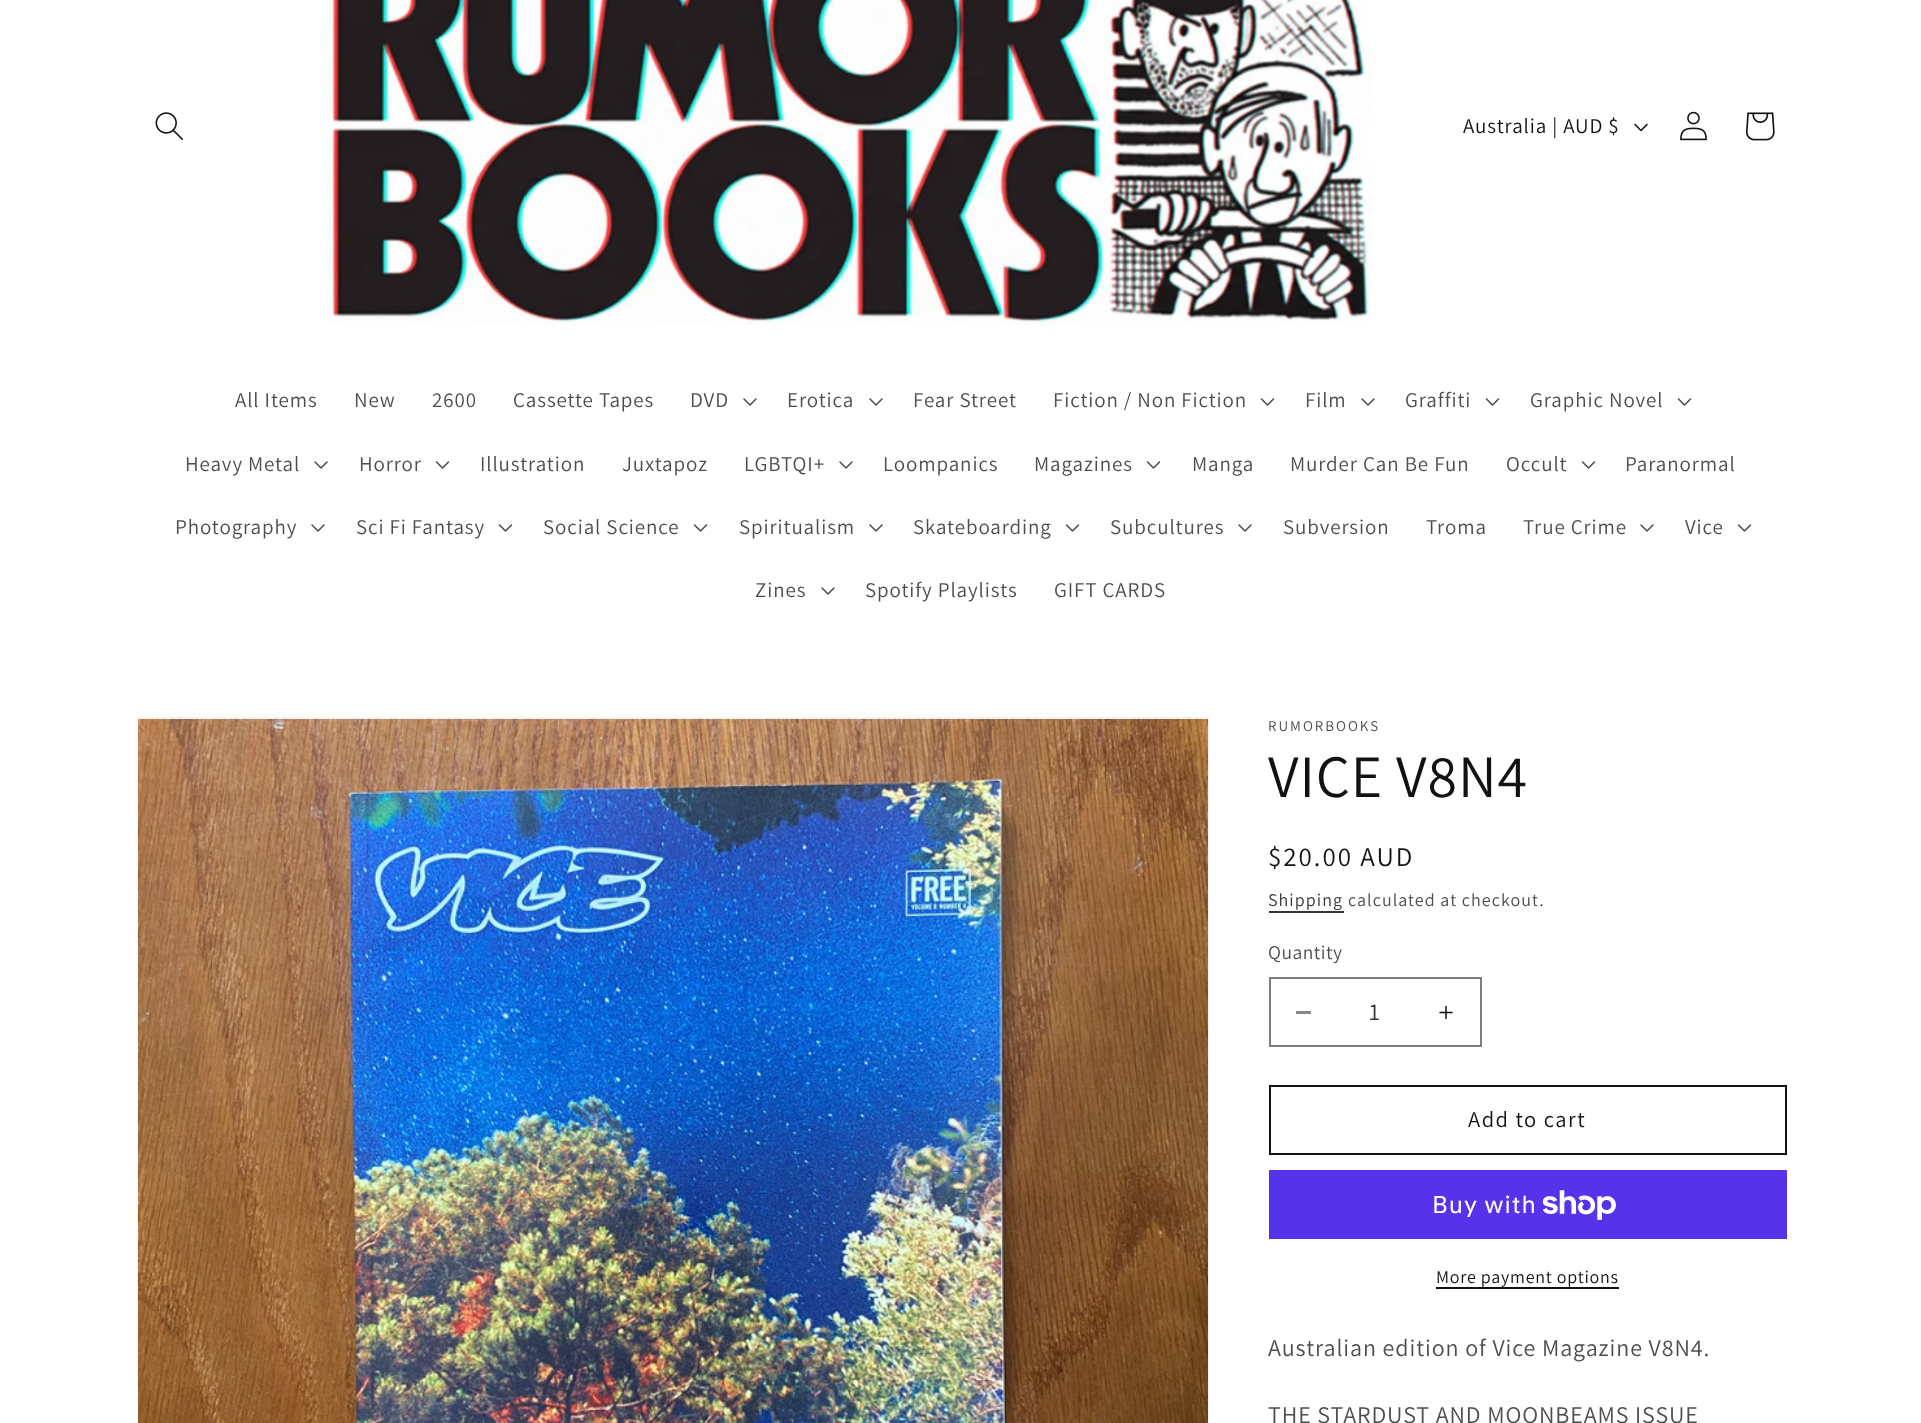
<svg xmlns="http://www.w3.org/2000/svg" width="1921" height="1423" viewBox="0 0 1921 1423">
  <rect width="100%" height="100%" fill="rgb(255,255,255)"/>
  <image x="155" y="112" width="28" height="28" href="pic1.png"/>
  <image x="327" y="0" width="1044" height="325" href="pic2.png"/>
  <text x="1463" y="133" font-family="Assistant" font-size="21" letter-spacing="0.9" fill="rgb(18,18,18)">Australia | AUD $</text>
  <image x="1634" y="123" width="14" height="9" href="pic3.png"/>
  <image x="1680" y="111" width="27" height="30" href="pic4.png"/>
  <image x="1746" y="112" width="29" height="29" href="pic5.png"/>
  <g font-family="Assistant" font-size="21" letter-spacing="0.9" fill="rgb(77,77,77)">
    <text x="235" y="407">All Items</text>
    <text x="354" y="407">New</text>
    <text x="432" y="407">2600</text>
    <text x="513" y="407">Cassette Tapes</text>
    <text x="690" y="407">DVD</text>
  </g>
  <image x="743" y="398" width="14" height="8" href="pic6.png"/>
  <text x="787" y="407" font-family="Assistant" font-size="21" letter-spacing="0.9" fill="rgb(77,77,77)">Erotica</text>
  <image x="869" y="398" width="14" height="8" href="pic6.png"/>
  <g font-family="Assistant" font-size="21" letter-spacing="0.9" fill="rgb(77,77,77)">
    <text x="913" y="407">Fear Street</text>
    <text x="1053" y="407">Fiction / Non Fiction</text>
  </g>
  <image x="1260" y="398" width="15" height="8" href="pic7.png"/>
  <text x="1305" y="407" font-family="Assistant" font-size="21" letter-spacing="0.9" fill="rgb(77,77,77)">Film</text>
  <image x="1361" y="398" width="14" height="8" href="pic6.png"/>
  <text x="1405" y="407" font-family="Assistant" font-size="21" letter-spacing="0.9" fill="rgb(77,77,77)">Graffiti</text>
  <image x="1485" y="398" width="15" height="8" href="pic7.png"/>
  <text x="1530" y="407" font-family="Assistant" font-size="21" letter-spacing="0.9" fill="rgb(77,77,77)">Graphic Novel</text>
  <image x="1677" y="398" width="15" height="8" href="pic7.png"/>
  <text x="185" y="471" font-family="Assistant" font-size="21" letter-spacing="0.9" fill="rgb(77,77,77)">Heavy Metal</text>
  <image x="314" y="461" width="14" height="8" href="pic6.png"/>
  <text x="359" y="471" font-family="Assistant" font-size="21" letter-spacing="0.9" fill="rgb(77,77,77)">Horror</text>
  <image x="435" y="461" width="15" height="8" href="pic7.png"/>
  <g font-family="Assistant" font-size="21" letter-spacing="0.9" fill="rgb(77,77,77)">
    <text x="480" y="471">Illustration</text>
    <text x="622" y="471">Juxtapoz</text>
    <text x="744" y="471">LGBTQI+</text>
  </g>
  <image x="839" y="461" width="14" height="8" href="pic6.png"/>
  <g font-family="Assistant" font-size="21" letter-spacing="0.9" fill="rgb(77,77,77)">
    <text x="883" y="471">Loompanics</text>
    <text x="1034" y="471">Magazines</text>
  </g>
  <image x="1146" y="461" width="15" height="8" href="pic7.png"/>
  <g font-family="Assistant" font-size="21" letter-spacing="0.9" fill="rgb(77,77,77)">
    <text x="1192" y="471">Manga</text>
    <text x="1290" y="471">Murder Can Be Fun</text>
    <text x="1506" y="471">Occult</text>
  </g>
  <image x="1581" y="461" width="15" height="8" href="pic7.png"/>
  <g font-family="Assistant" font-size="21" letter-spacing="0.9" fill="rgb(77,77,77)">
    <text x="1625" y="471">Paranormal</text>
    <text x="175" y="534">Photography</text>
  </g>
  <image x="311" y="524" width="14" height="8" href="pic6.png"/>
  <text x="356" y="534" font-family="Assistant" font-size="21" letter-spacing="0.9" fill="rgb(77,77,77)">Sci Fi Fantasy</text>
  <image x="498" y="524" width="15" height="8" href="pic7.png"/>
  <text x="543" y="534" font-family="Assistant" font-size="21" letter-spacing="0.9" fill="rgb(77,77,77)">Social Science</text>
  <image x="693" y="524" width="15" height="8" href="pic7.png"/>
  <text x="739" y="534" font-family="Assistant" font-size="21" letter-spacing="0.9" fill="rgb(77,77,77)">Spiritualism</text>
  <image x="869" y="524" width="14" height="8" href="pic6.png"/>
  <text x="913" y="534" font-family="Assistant" font-size="21" letter-spacing="0.9" fill="rgb(77,77,77)">Skateboarding</text>
  <image x="1065" y="524" width="15" height="8" href="pic7.png"/>
  <text x="1110" y="534" font-family="Assistant" font-size="21" letter-spacing="0.9" fill="rgb(77,77,77)">Subcultures</text>
  <image x="1238" y="524" width="14" height="8" href="pic6.png"/>
  <g font-family="Assistant" font-size="21" letter-spacing="0.9" fill="rgb(77,77,77)">
    <text x="1283" y="534">Subversion</text>
    <text x="1426" y="534">Troma</text>
    <text x="1523" y="534">True Crime</text>
  </g>
  <image x="1640" y="524" width="14" height="8" href="pic6.png"/>
  <text x="1685" y="534" font-family="Assistant" font-size="21" letter-spacing="0.9" fill="rgb(77,77,77)">Vice</text>
  <image x="1737" y="524" width="15" height="8" href="pic7.png"/>
  <text x="755" y="597" font-family="Assistant" font-size="21" letter-spacing="0.9" fill="rgb(77,77,77)">Zines</text>
  <image x="821" y="587" width="14" height="8" href="pic6.png"/>
  <g font-family="Assistant" font-size="21" letter-spacing="0.9" fill="rgb(77,77,77)">
    <text x="865" y="597">Spotify Playlists</text>
    <text x="1054" y="597">GIFT CARDS</text>
  </g>
  <rect x="138" y="718" width="1070" height="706" fill="none" stroke="rgb(243,243,243)" stroke-width="2"/>
  <image x="138" y="719" width="1070" height="704" href="pic8.png"/>
  <text x="1268" y="731" font-family="Assistant" font-size="15" letter-spacing="2" fill="rgb(77,77,77)">RUMORBOOKS</text>
  <text x="1268" y="797" font-family="Assistant" font-size="60" letter-spacing="0.9" fill="rgb(18,18,18)">VICE V8N4</text>
  <text x="1268" y="866" font-family="Assistant" font-size="27" letter-spacing="2" fill="rgb(18,18,18)">$20.00 AUD</text>
  <text x="1268" y="906" font-family="Assistant" font-size="18" letter-spacing="1.05" fill="rgb(54,54,54)">Shipping</text>
  <rect x="1269" y="911" width="75" height="2" fill="rgb(54,54,54)"/>
  <text x="1348" y="906" font-family="Assistant" font-size="18" letter-spacing="1.05" fill="rgb(77,77,77)">calculated at checkout.</text>
  <text x="1268" y="959" font-family="Assistant" font-size="19.5" letter-spacing="0.5" fill="rgb(77,77,77)">Quantity</text>
  <rect x="1296" y="1011" width="15" height="3" fill="rgb(137,137,137)"/>
  <image x="1439" y="1005" width="14" height="15" href="pic9.png"/>
  <rect x="1270" y="978" width="211" height="68" fill="none" stroke="rgb(125,125,125)" stroke-width="2"/>
  <text x="1369" y="1020" font-family="Assistant" font-size="24" fill="rgb(54,54,54)">1</text>
  <rect x="1270" y="1086" width="516" height="68" fill="none" stroke="rgb(18,18,18)" stroke-width="2"/>
  <text x="1468" y="1127" font-family="Assistant" font-size="22.5" letter-spacing="1.5" fill="rgb(18,18,18)">Add to cart</text>
  <rect x="1269" y="1170" width="518" height="69" fill="rgb(84,51,235)"/>
  <text x="1432" y="1213" font-family="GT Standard" font-size="24" letter-spacing="0.9" fill="rgb(255,255,255)">Buy with</text>
  <image x="1542" y="1190" width="74" height="30" href="pic10.png"/>
  <text x="1436" y="1283" font-family="Assistant" font-size="18" letter-spacing="0.75" fill="rgb(18,18,18)">More payment options</text>
  <rect x="1436" y="1287" width="183" height="2" fill="rgb(18,18,18)"/>
  <g font-family="Assistant" font-size="24" letter-spacing="0.9" fill="rgb(77,77,77)">
    <text x="1268" y="1356">Australian edition of Vice Magazine V8N4.</text>
    <text x="1268" y="1423">THE STARDUST AND MOONBEAMS ISSUE</text>
  </g>
</svg>
